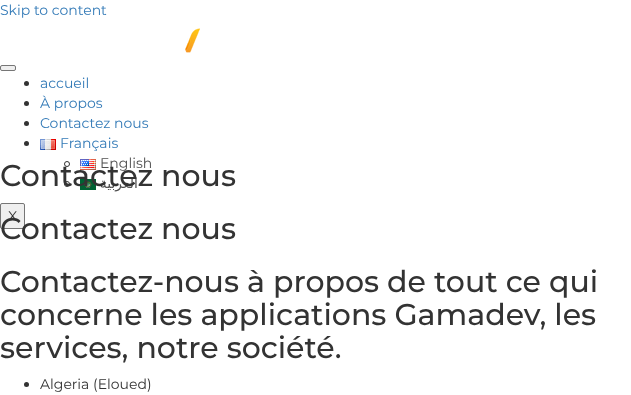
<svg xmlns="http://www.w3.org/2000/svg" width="631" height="395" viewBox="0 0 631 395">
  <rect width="100%" height="100%" fill="rgb(255,255,255)"/>
  <text x="0" y="15" font-family="Montserrat" font-size="14" fill="rgb(51,122,183)">Skip to content</text>
  <image x="185" y="28" width="15" height="25" href="pic1.png"/>
  <rect x="0.5" y="65.5" width="15" height="5" rx="1.5" fill="rgb(239,239,239)" stroke="rgb(118,118,118)"/>
  <circle cx="26.5" cy="83.5" r="2.5" fill="rgb(51,51,51)"/>
  <text x="40" y="88" font-family="Montserrat" font-size="14" fill="rgb(51,122,183)">accueil</text>
  <circle cx="26.5" cy="103.5" r="2.5" fill="rgb(51,51,51)"/>
  <text x="40" y="108" font-family="Montserrat" font-size="14" fill="rgb(51,122,183)">À propos</text>
  <circle cx="26.5" cy="123.5" r="2.5" fill="rgb(51,51,51)"/>
  <text x="40" y="128" font-family="Montserrat" font-size="14" fill="rgb(51,122,183)">Contactez nous</text>
  <circle cx="26.5" cy="143.5" r="2.5" fill="rgb(51,51,51)"/>
  <image x="40" y="139" width="16" height="11" href="pic2.png"/>
  <text x="60" y="148" font-family="Montserrat" font-size="14" fill="rgb(51,122,183)">Français</text>
  <circle cx="67" cy="164" r="2.5" fill="none" stroke="rgb(51,51,51)"/>
  <image x="80" y="159" width="16" height="11" href="pic3.png"/>
  <text x="100" y="168" font-family="Montserrat" font-size="14" fill="rgb(79,79,79)">English</text>
  <circle cx="67" cy="184" r="2.5" fill="none" stroke="rgb(51,51,51)"/>
  <image x="80" y="179" width="16" height="11" href="pic4.png"/>
  <text x="138" y="188" font-family="DejaVu Sans" font-size="14" direction="rtl" fill="rgb(79,79,79)">العربية</text>
  <rect x="0.5" y="203.5" width="24" height="25" rx="1.5" fill="rgb(239,239,239)" stroke="rgb(118,118,118)"/>
  <text x="8" y="221" font-family="Montserrat" font-size="14" fill="rgb(51,51,51)">X</text>
  <g font-family="Montserrat" font-size="30" font-weight="500" fill="rgb(51,51,51)">
    <text>
      <tspan x="0" y="186">Contactez nous</tspan>
      <tspan x="0" y="239">Contactez nous</tspan>
      <tspan x="0" y="292">Contactez-nous à propos de tout ce qui</tspan>
      <tspan x="0" y="325">concerne les applications Gamadev, les</tspan>
      <tspan x="0" y="358">services, notre société.</tspan>
    </text>
  </g>
  <circle cx="26.5" cy="384.5" r="2.5" fill="rgb(51,51,51)"/>
  <text x="40" y="389" font-family="Montserrat" font-size="14" fill="rgb(51,51,51)">Algeria (Eloued)</text>
</svg>
